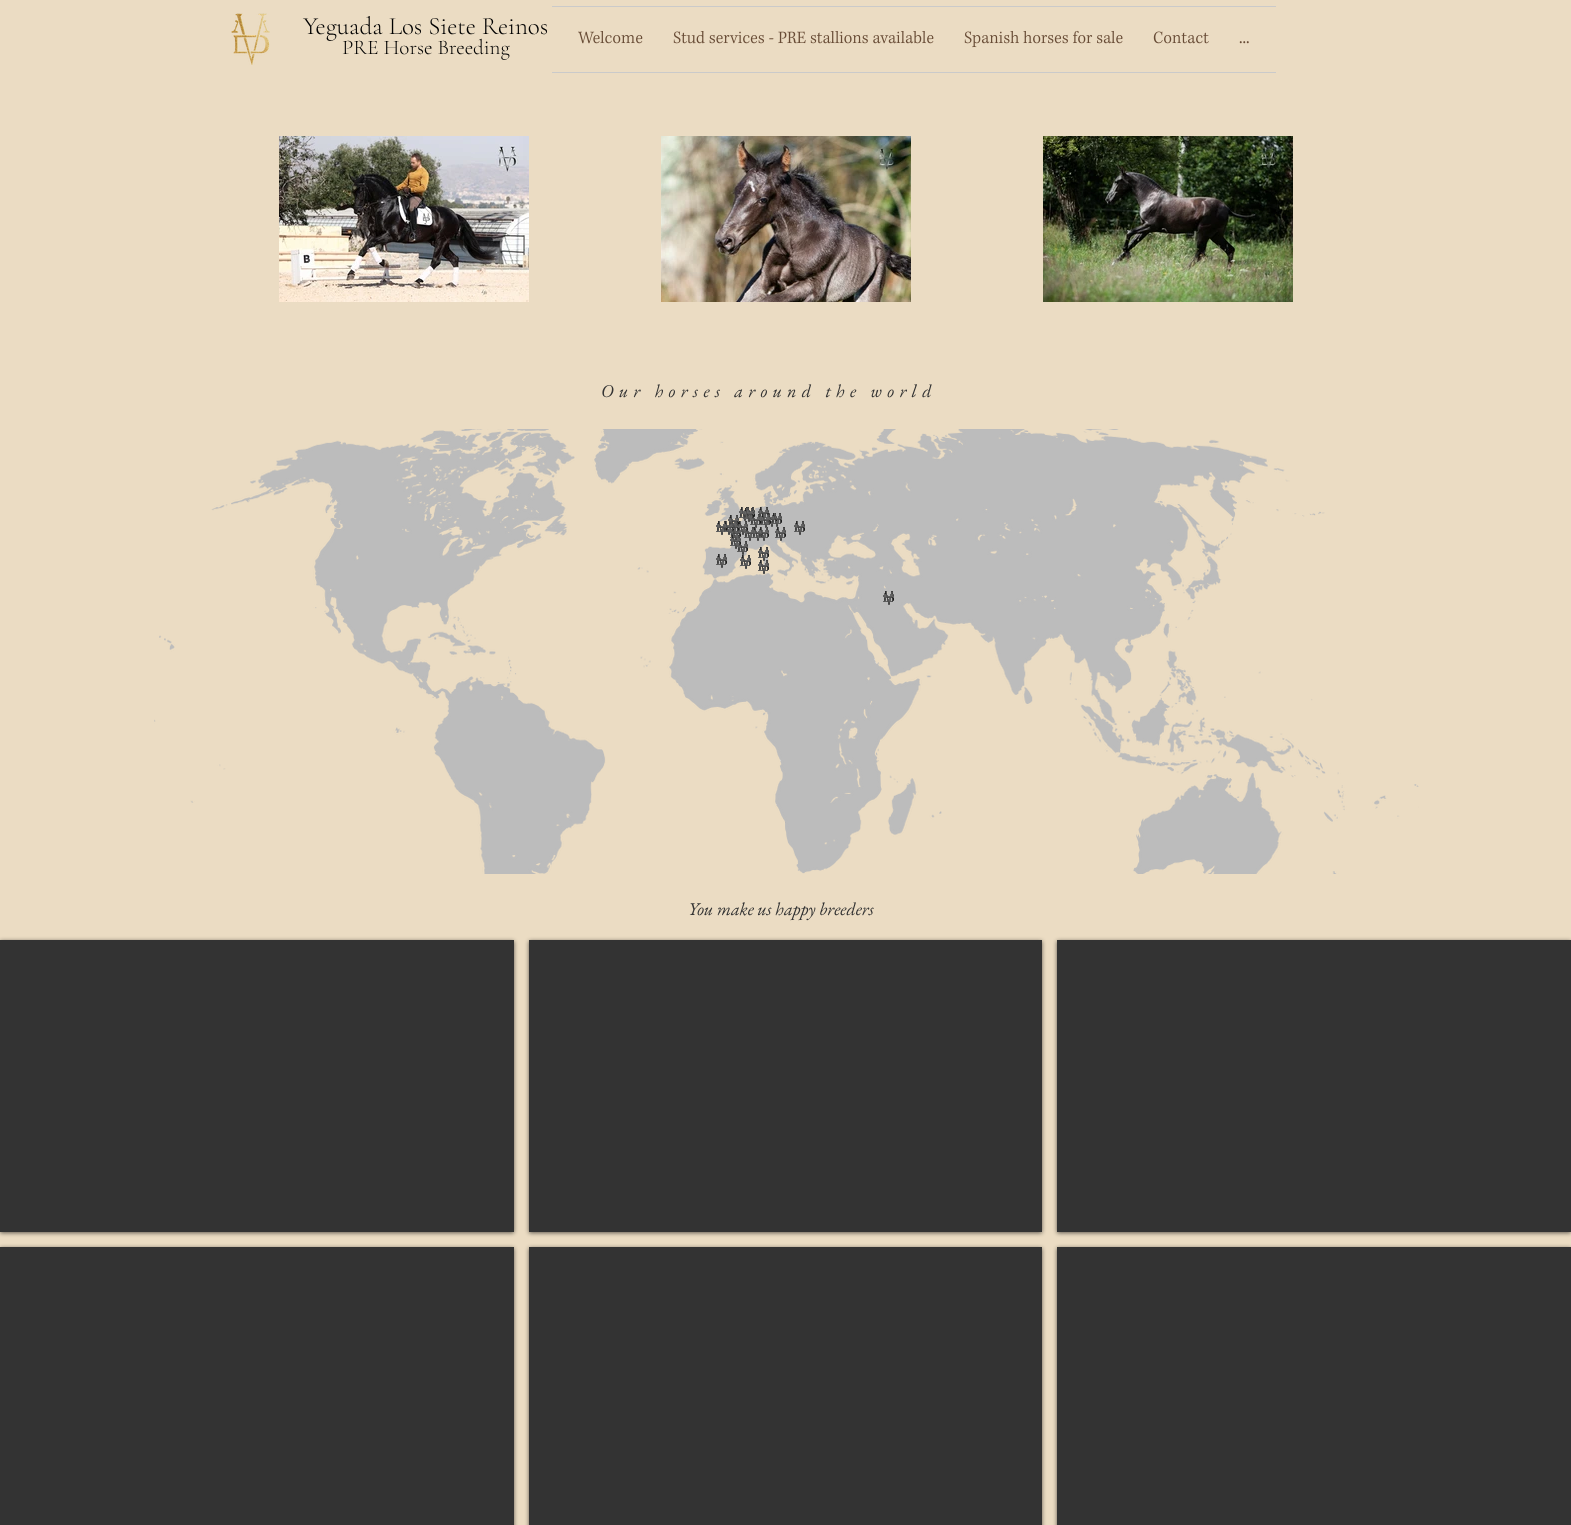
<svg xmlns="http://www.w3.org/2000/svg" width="1571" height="1525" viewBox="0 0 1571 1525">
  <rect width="100%" height="100%" fill="rgb(235,220,195)"/>
  <image x="231" y="13" width="39" height="52" href="pic1.png"/>
  <text x="303" y="34" font-family="Cormorant Garamond" font-size="25" font-weight="300" fill="rgb(0,0,0)">Yeguada Los Siete Reinos</text>
  <text x="342" y="54" font-family="Cormorant Garamond" font-size="21" font-weight="300" fill="rgb(0,0,0)">PRE Horse Breeding</text>
  <rect x="552" y="6" width="724" height="1" fill="rgb(202,202,202)"/>
  <rect x="552" y="72" width="724" height="1" fill="rgb(202,202,202)"/>
  <image x="578" y="31" width="65" height="13" href="pic2.png"/>
  <image x="673" y="31" width="261" height="13" href="pic3.png"/>
  <image x="964" y="30" width="159" height="18" href="pic4.png"/>
  <image x="1153" y="31" width="56" height="13" href="pic5.png"/>
  <image x="1239" y="41" width="10" height="3" href="pic6.png"/>
  <image x="279" y="136" width="250" height="166" href="pic7.png"/>
  <image x="661" y="136" width="250" height="166" href="pic8.png"/>
  <image x="1043" y="136" width="250" height="166" href="pic9.png"/>
  <text x="601" y="397" font-family="EB Garamond" font-size="18" font-style="italic" letter-spacing="5.4" fill="rgb(51,51,51)">Our horses around the world</text>
  <image x="154" y="429" width="1265" height="445" href="pic10.png"/>
  <image x="746" y="507" width="9" height="14" href="pic12.png"/>
  <image x="739" y="507" width="11" height="14" href="pic11.png"/>
  <image x="758" y="507" width="11" height="11" href="pic13.png"/>
  <image x="744" y="527" width="10" height="14" href="pic24.png"/>
  <image x="752" y="527" width="11" height="14" href="pic25.png"/>
  <image x="758" y="527" width="11" height="14" href="pic26.png"/>
  <image x="750" y="514" width="11" height="14" href="pic18.png"/>
  <image x="730" y="529" width="11" height="11" href="pic29.png"/>
  <image x="738" y="521" width="10" height="14" href="pic23.png"/>
  <image x="743" y="508" width="11" height="14" href="pic14.png"/>
  <image x="766" y="513" width="11" height="14" href="pic15.png"/>
  <image x="716" y="521" width="11" height="14" href="pic16.png"/>
  <image x="733" y="522" width="6" height="13" href="pic22.png"/>
  <image x="723" y="521" width="11" height="14" href="pic21.png"/>
  <image x="728" y="515" width="11" height="14" href="pic17.png"/>
  <image x="760" y="514" width="11" height="14" href="pic19.png"/>
  <image x="771" y="513" width="11" height="14" href="pic20.png"/>
  <image x="775" y="527" width="11" height="14" href="pic27.png"/>
  <image x="794" y="521" width="11" height="14" href="pic28.png"/>
  <image x="716" y="554" width="11" height="14" href="pic28.png"/>
  <image x="737" y="541" width="11" height="14" href="pic31.png"/>
  <image x="730" y="535" width="11" height="14" href="pic30.png"/>
  <image x="758" y="560" width="11" height="14" href="pic34.png"/>
  <image x="758" y="547" width="11" height="14" href="pic32.png"/>
  <image x="740" y="555" width="11" height="14" href="pic33.png"/>
  <image x="883" y="591" width="11" height="14" href="pic35.png"/>
  <text x="688" y="915" font-family="EB Garamond" font-size="18" font-style="italic" fill="rgb(51,51,51)">You make us happy breeders</text>
  <rect x="0" y="941" width="514" height="292" fill="rgba(0,0,0,0.6)" filter="blur(2px)"/>
  <rect x="0" y="940" width="514" height="292" fill="rgb(51,51,51)"/>
  <rect x="529" y="941" width="513" height="292" fill="rgba(0,0,0,0.6)" filter="blur(2px)"/>
  <rect x="529" y="940" width="513" height="292" fill="rgb(51,51,51)"/>
  <rect x="1057" y="941" width="514" height="292" fill="rgba(0,0,0,0.6)" filter="blur(2px)"/>
  <rect x="1057" y="940" width="514" height="292" fill="rgb(51,51,51)"/>
  <rect x="0" y="1248" width="514" height="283" fill="rgba(0,0,0,0.6)" filter="blur(2px)"/>
  <rect x="0" y="1247" width="514" height="278" fill="rgb(51,51,51)"/>
  <rect x="529" y="1248" width="513" height="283" fill="rgba(0,0,0,0.6)" filter="blur(2px)"/>
  <rect x="529" y="1247" width="513" height="278" fill="rgb(51,51,51)"/>
  <rect x="1057" y="1248" width="514" height="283" fill="rgba(0,0,0,0.6)" filter="blur(2px)"/>
  <rect x="1057" y="1247" width="514" height="278" fill="rgb(51,51,51)"/>
</svg>
